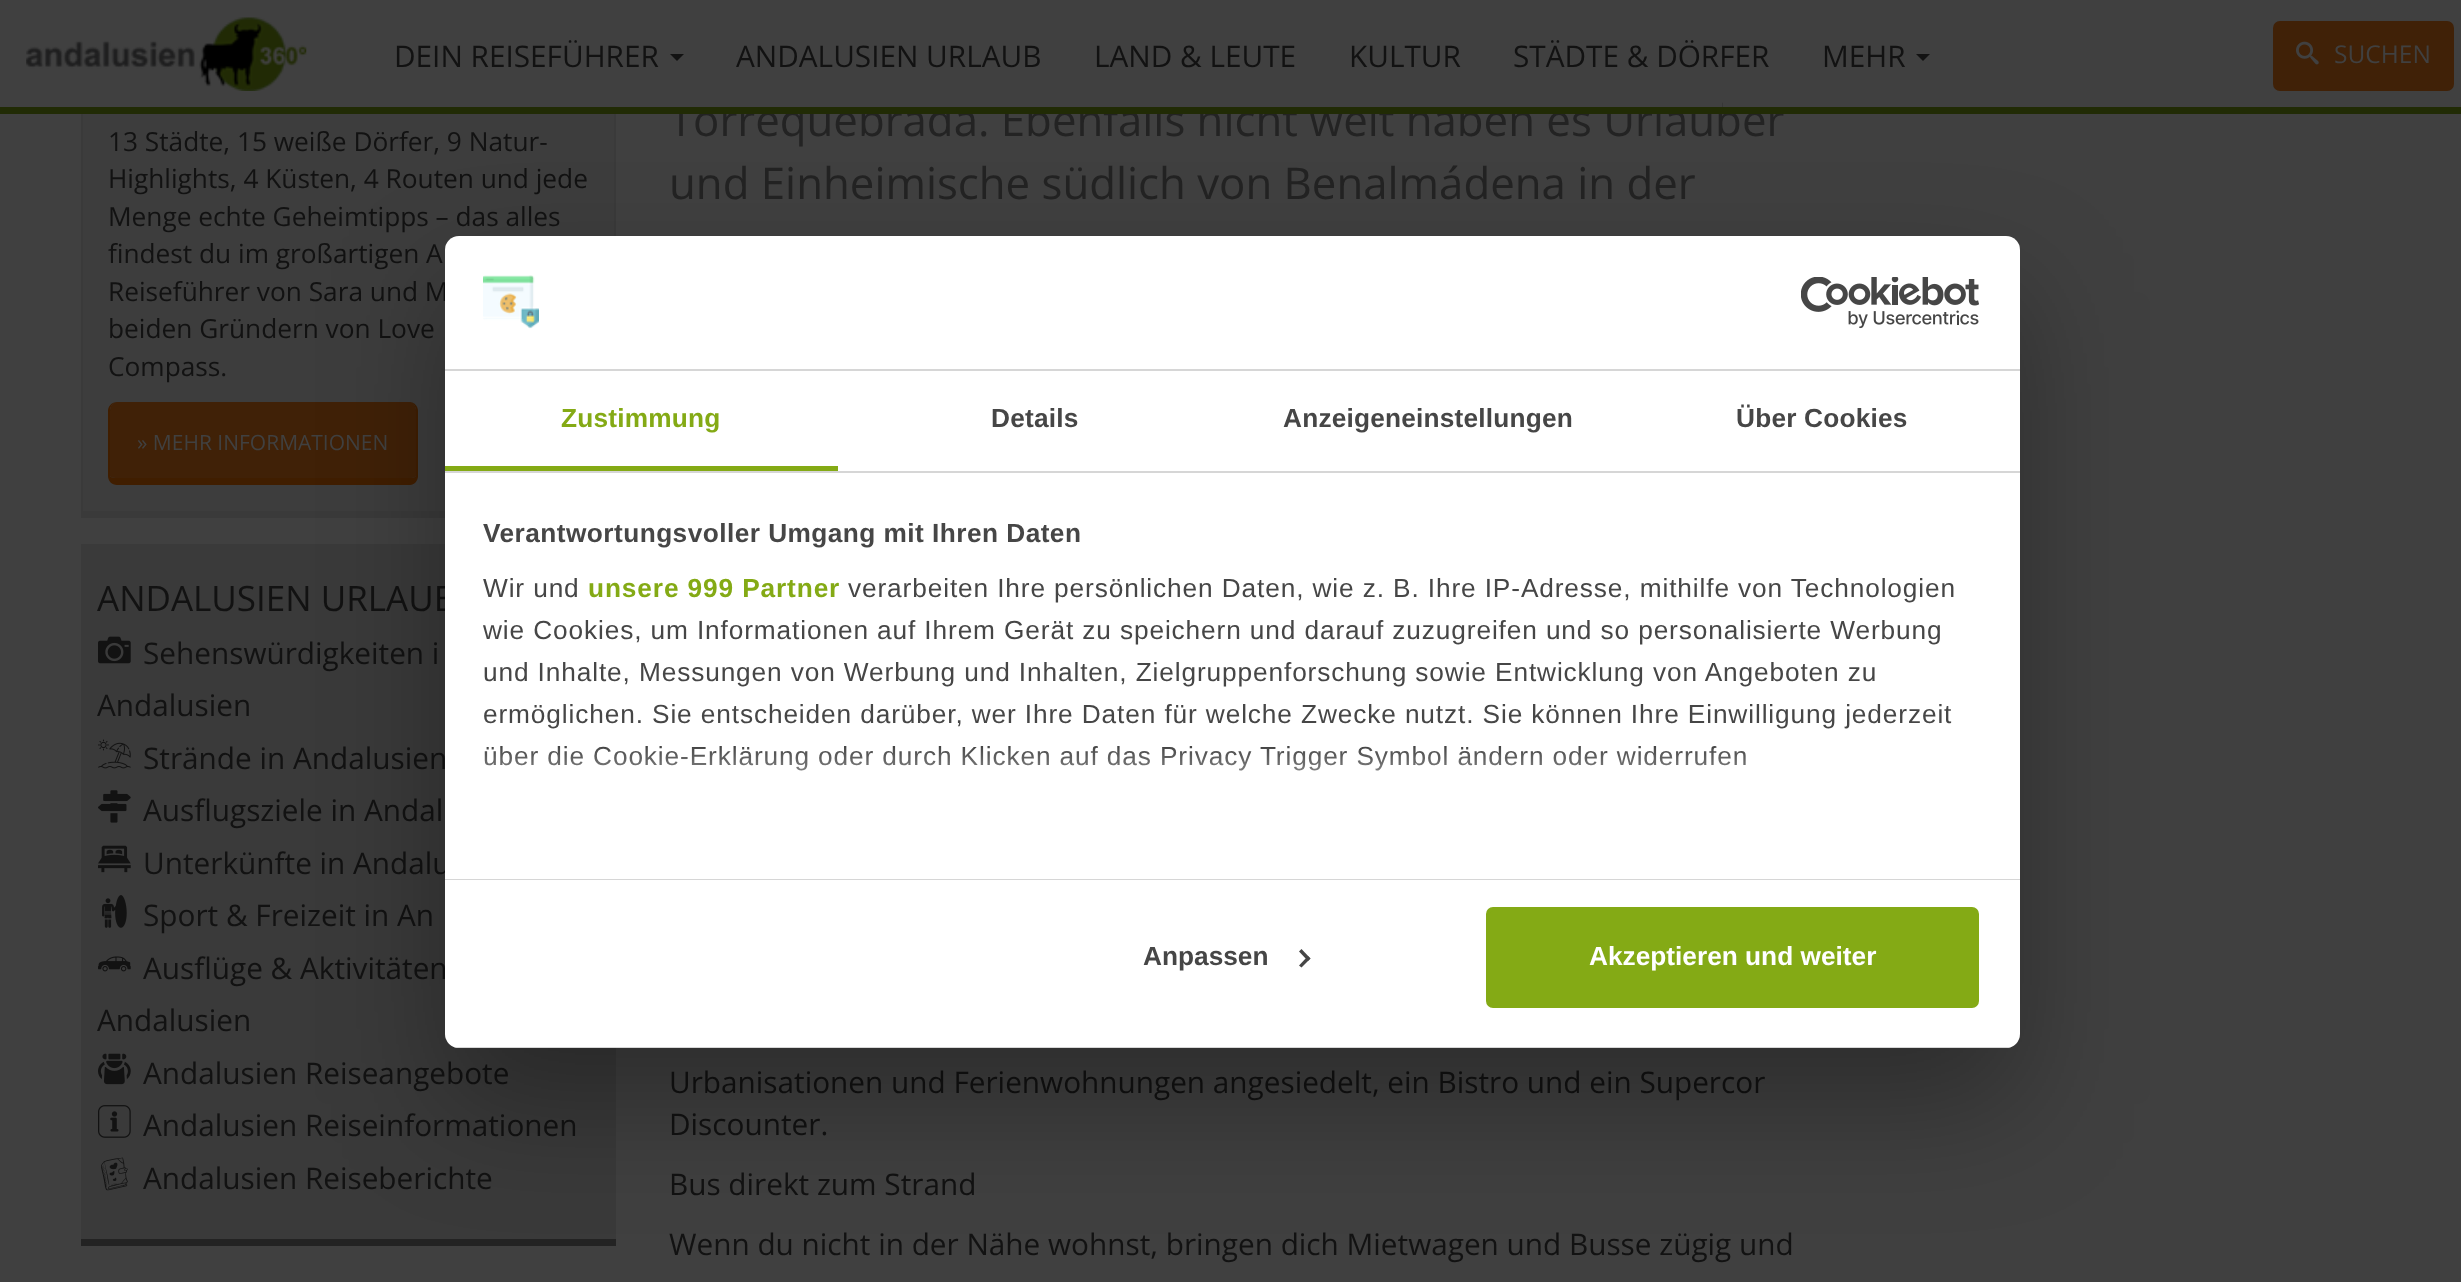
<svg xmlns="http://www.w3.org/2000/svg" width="2461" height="1282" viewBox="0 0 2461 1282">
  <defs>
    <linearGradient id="g1" gradientUnits="userSpaceOnUse" x1="1214" y1="878" x2="1214" y2="746"><stop offset="0" stop-color="rgb(255,255,255)"/><stop offset="0.5" stop-color="rgb(255,255,255)" stop-opacity="0.8"/><stop offset="1" stop-color="rgb(255,255,255)" stop-opacity="0"/></linearGradient>
    <clipPath id="clip1"><rect x="445" y="236" width="1575" height="812" rx="14"/></clipPath>
  </defs>
  <rect width="100%" height="100%" fill="rgb(64,64,64)"/>
  <text x="669" y="136" font-family="Open Sans" font-size="43.75" fill="rgb(35,35,35)">Torrequebrada. Ebenfalls nicht weit haben es Urlauber</text>
  <rect x="668" y="102" width="1054" height="5" fill="rgb(64,64,64)"/>
  <rect x="0" y="107" width="2461" height="7" fill="rgb(33,43,5)"/>
  <image x="26" y="17" width="281" height="74" href="pic1.png"/>
  <text x="394" y="67" font-family="Open Sans" font-size="29.75" fill="rgb(18,18,18)">DEIN REISEFÜHRER</text>
  <path d="M670 54H684L677 61Z" fill="rgb(18,18,18)"/>
  <g font-family="Open Sans" font-size="29.75" fill="rgb(18,18,18)">
    <text x="736" y="67">ANDALUSIEN URLAUB</text>
    <text x="1094" y="67">LAND &amp; LEUTE</text>
    <text x="1349" y="67">KULTUR</text>
    <text x="1513" y="67">STÄDTE &amp; DÖRFER</text>
    <text x="1822" y="67">MEHR</text>
  </g>
  <path d="M1916 54H1930L1923 61Z" fill="rgb(18,18,18)"/>
  <rect x="2273" y="21" width="181" height="70" rx="7" fill="rgb(64,33,7)"/>
  <image x="2296" y="41" width="23" height="24" href="pic2.png"/>
  <text x="2334" y="63" font-family="Open Sans" font-size="24.5" fill="rgb(64,64,64)">SUCHEN</text>
  <rect x="83" y="114" width="531" height="397" fill="rgb(61,61,61)"/>
  <rect x="614" y="114" width="2" height="122" fill="rgb(58,58,58)"/>
  <rect x="81" y="511" width="364" height="7" fill="rgb(58,58,58)"/>
  <rect x="81" y="114" width="2" height="404" fill="rgb(58,58,58)"/>
  <g font-family="Open Sans" font-size="26.25" fill="rgb(18,18,18)">
    <text>
      <tspan x="108" y="151">13 Städte, 15 weiße Dörfer, 9 Natur-</tspan>
      <tspan x="108" y="188">Highlights, 4 Küsten, 4 Routen und jede</tspan>
      <tspan x="108" y="226">Menge echte Geheimtipps – das alles</tspan>
      <tspan x="108" y="263">findest du im großartigen A</tspan>
      <tspan x="108" y="301">Reiseführer von Sara und M</tspan>
      <tspan x="108" y="338">beiden Gründern von Love</tspan>
      <tspan x="108" y="376">Compass.</tspan>
    </text>
  </g>
  <path d="M117 402H410C413 402 416 406 416 411V476C416 477 413 478 410 478H117C113 478 110 477 110 476V411C110 406 113 402 117 402Z" fill="rgb(64,33,7)"/>
  <path d="M117 402H410C414 402 418 406 418 411V476C418 481 414 485 410 485H117C112 485 108 481 108 476V411C108 406 112 402 117 402ZM117 402H410C413 402 416 406 416 411V476C416 477 413 478 410 478H117C113 478 110 477 110 476V411C110 406 113 402 117 402Z" fill="rgb(64,30,0)" fill-rule="evenodd"/>
  <text x="137" y="450" font-family="Open Sans" font-size="21" fill="rgb(64,64,64)">» MEHR INFORMATIONEN</text>
  <rect x="81" y="544" width="535" height="695" fill="rgb(58,58,58)"/>
  <rect x="81" y="1239" width="535" height="7" fill="rgb(35,35,35)"/>
  <text x="97" y="611" font-family="Open Sans" font-size="35" fill="rgb(18,18,18)">ANDALUSIEN URLAUB</text>
  <image x="98" y="636" width="33" height="28" href="pic3.png"/>
  <g font-family="Open Sans" font-size="29.75" fill="rgb(18,18,18)">
    <text x="143" y="664">Sehenswürdigkeiten i</text>
    <text x="97" y="716">Andalusien</text>
  </g>
  <image x="98" y="739" width="33" height="30" href="pic4.png"/>
  <text x="143" y="769" font-family="Open Sans" font-size="29.75" fill="rgb(18,18,18)">Strände in Andalusien</text>
  <image x="98" y="790" width="33" height="33" href="pic5.png"/>
  <text x="143" y="821" font-family="Open Sans" font-size="29.75" fill="rgb(18,18,18)">Ausflugsziele in Andal</text>
  <image x="98" y="845" width="33" height="28" href="pic6.png"/>
  <text x="143" y="874" font-family="Open Sans" font-size="29.75" fill="rgb(18,18,18)">Unterkünfte in Andalu</text>
  <image x="102" y="895" width="25" height="33" href="pic7.png"/>
  <text x="143" y="926" font-family="Open Sans" font-size="29.75" fill="rgb(18,18,18)">Sport &amp; Freizeit in An</text>
  <image x="98" y="956" width="33" height="16" href="pic8.png"/>
  <g font-family="Open Sans" font-size="29.75" fill="rgb(18,18,18)">
    <text x="143" y="979">Ausflüge &amp; Aktivitäten</text>
    <text x="97" y="1031">Andalusien</text>
  </g>
  <image x="98" y="1053" width="33" height="32" href="pic9.png"/>
  <text x="143" y="1084" font-family="Open Sans" font-size="29.75" fill="rgb(18,18,18)">Andalusien Reiseangebote</text>
  <image x="98" y="1105" width="33" height="33" href="pic10.png"/>
  <text x="143" y="1136" font-family="Open Sans" font-size="29.75" fill="rgb(18,18,18)">Andalusien Reiseinformationen</text>
  <image x="101" y="1157" width="27" height="34" href="pic11.png"/>
  <text x="143" y="1189" font-family="Open Sans" font-size="29.75" fill="rgb(18,18,18)">Andalusien Reiseberichte</text>
  <text x="669" y="199" font-family="Open Sans" font-size="43.75" fill="rgb(35,35,35)">und Einheimische südlich von Benalmádena in der</text>
  <g font-family="Open Sans" font-size="29.75" fill="rgb(18,18,18)">
    <text>
      <tspan x="669" y="1093">Urbanisationen und Ferienwohnungen angesiedelt, ein Bistro und ein Supercor</tspan>
      <tspan x="669" y="1135">Discounter.</tspan>
    </text>
    <text x="669" y="1195">Bus direkt zum Strand</text>
    <text x="669" y="1255">Wenn du nicht in der Nähe wohnst, bringen dich Mietwagen und Busse zügig und</text>
  </g>
  <rect x="445" y="292" width="1575" height="812" rx="14" fill="rgba(0,0,0,0.3)" filter="blur(59.5px)"/>
  <rect x="445" y="236" width="1575" height="812" rx="14" fill="rgb(255,255,255)"/>
  <rect x="445" y="369" width="1575" height="2" fill="rgb(214,214,214)"/>
  <image x="483" y="275" width="56" height="54" href="pic12.png"/>
  <image x="1801" y="277" width="178" height="52" href="pic13.png"/>
  <rect x="445" y="471" width="1575" height="2" fill="rgb(214,214,214)"/>
  <rect x="445" y="466" width="393" height="5" fill="rgb(132,170,21)"/>
  <text x="561" y="427" font-family="Liberation Sans" font-size="26.25" font-weight="bold" letter-spacing="0.2" fill="rgb(132,170,21)">Zustimmung</text>
  <g font-family="Liberation Sans" font-size="26.25" font-weight="bold" letter-spacing="0.2" fill="rgb(70,70,70)">
    <text x="991" y="427">Details</text>
    <text x="1283" y="427">Anzeigeneinstellungen</text>
    <text x="1736" y="427">Über Cookies</text>
  </g>
  <rect x="445" y="879" width="1575" height="1" fill="rgb(214,214,214)"/>
  <text x="483" y="542" font-family="Liberation Sans" font-size="26.25" font-weight="bold" letter-spacing="0.45" fill="rgb(70,70,70)">Verantwortungsvoller Umgang mit Ihren Daten</text>
  <text x="483" y="597" font-family="Liberation Sans" font-size="26.25" letter-spacing="0.88" fill="rgb(70,70,70)">Wir und</text>
  <text x="588" y="597" font-family="Liberation Sans" font-size="26.25" font-weight="bold" letter-spacing="0.88" fill="rgb(132,170,21)">unsere 999 Partner</text>
  <g font-family="Liberation Sans" font-size="26.25" letter-spacing="0.88" fill="rgb(70,70,70)">
    <text x="848" y="597">verarbeiten Ihre persönlichen Daten, wie z. B. Ihre IP-Adresse, mithilfe von Technologien</text>
    <text>
      <tspan x="483" y="639">wie Cookies, um Informationen auf Ihrem Gerät zu speichern und darauf zuzugreifen und so personalisierte Werbung</tspan>
      <tspan x="483" y="681">und Inhalte, Messungen von Werbung und Inhalten, Zielgruppenforschung sowie Entwicklung von Angeboten zu</tspan>
      <tspan x="483" y="723">ermöglichen. Sie entscheiden darüber, wer Ihre Daten für welche Zwecke nutzt. Sie können Ihre Einwilligung jederzeit</tspan>
      <tspan x="483" y="765">über die Cookie-Erklärung oder durch Klicken auf das Privacy Trigger Symbol ändern oder widerrufen</tspan>
    </text>
  </g>
  <rect x="484" y="748" width="1262" height="23" fill="url(#g1)"/>
  <g clip-path="url(#clip1)">
    <rect x="454" y="1047" width="1557" height="1" fill="rgb(214,214,214)"/>
  </g>
  <text x="1143" y="965" font-family="Liberation Sans" font-size="26.25" font-weight="bold" fill="rgb(70,70,70)">Anpassen</text>
  <path d="M1301.5 949L1310.5 958.5L1308 961L1299 951.5Z" fill="rgb(70,70,70)"/>
  <path d="M1308 956L1310.5 958.5L1301.5 967.5L1299 965.5Z" fill="rgb(70,70,70)"/>
  <rect x="1488" y="909" width="489" height="97" rx="5" fill="rgb(132,170,21)" stroke="rgb(132,170,21)" stroke-width="4"/>
  <text x="1589" y="965" font-family="Liberation Sans" font-size="26.25" font-weight="bold" fill="rgb(255,255,255)">Akzeptieren und weiter</text>
</svg>
